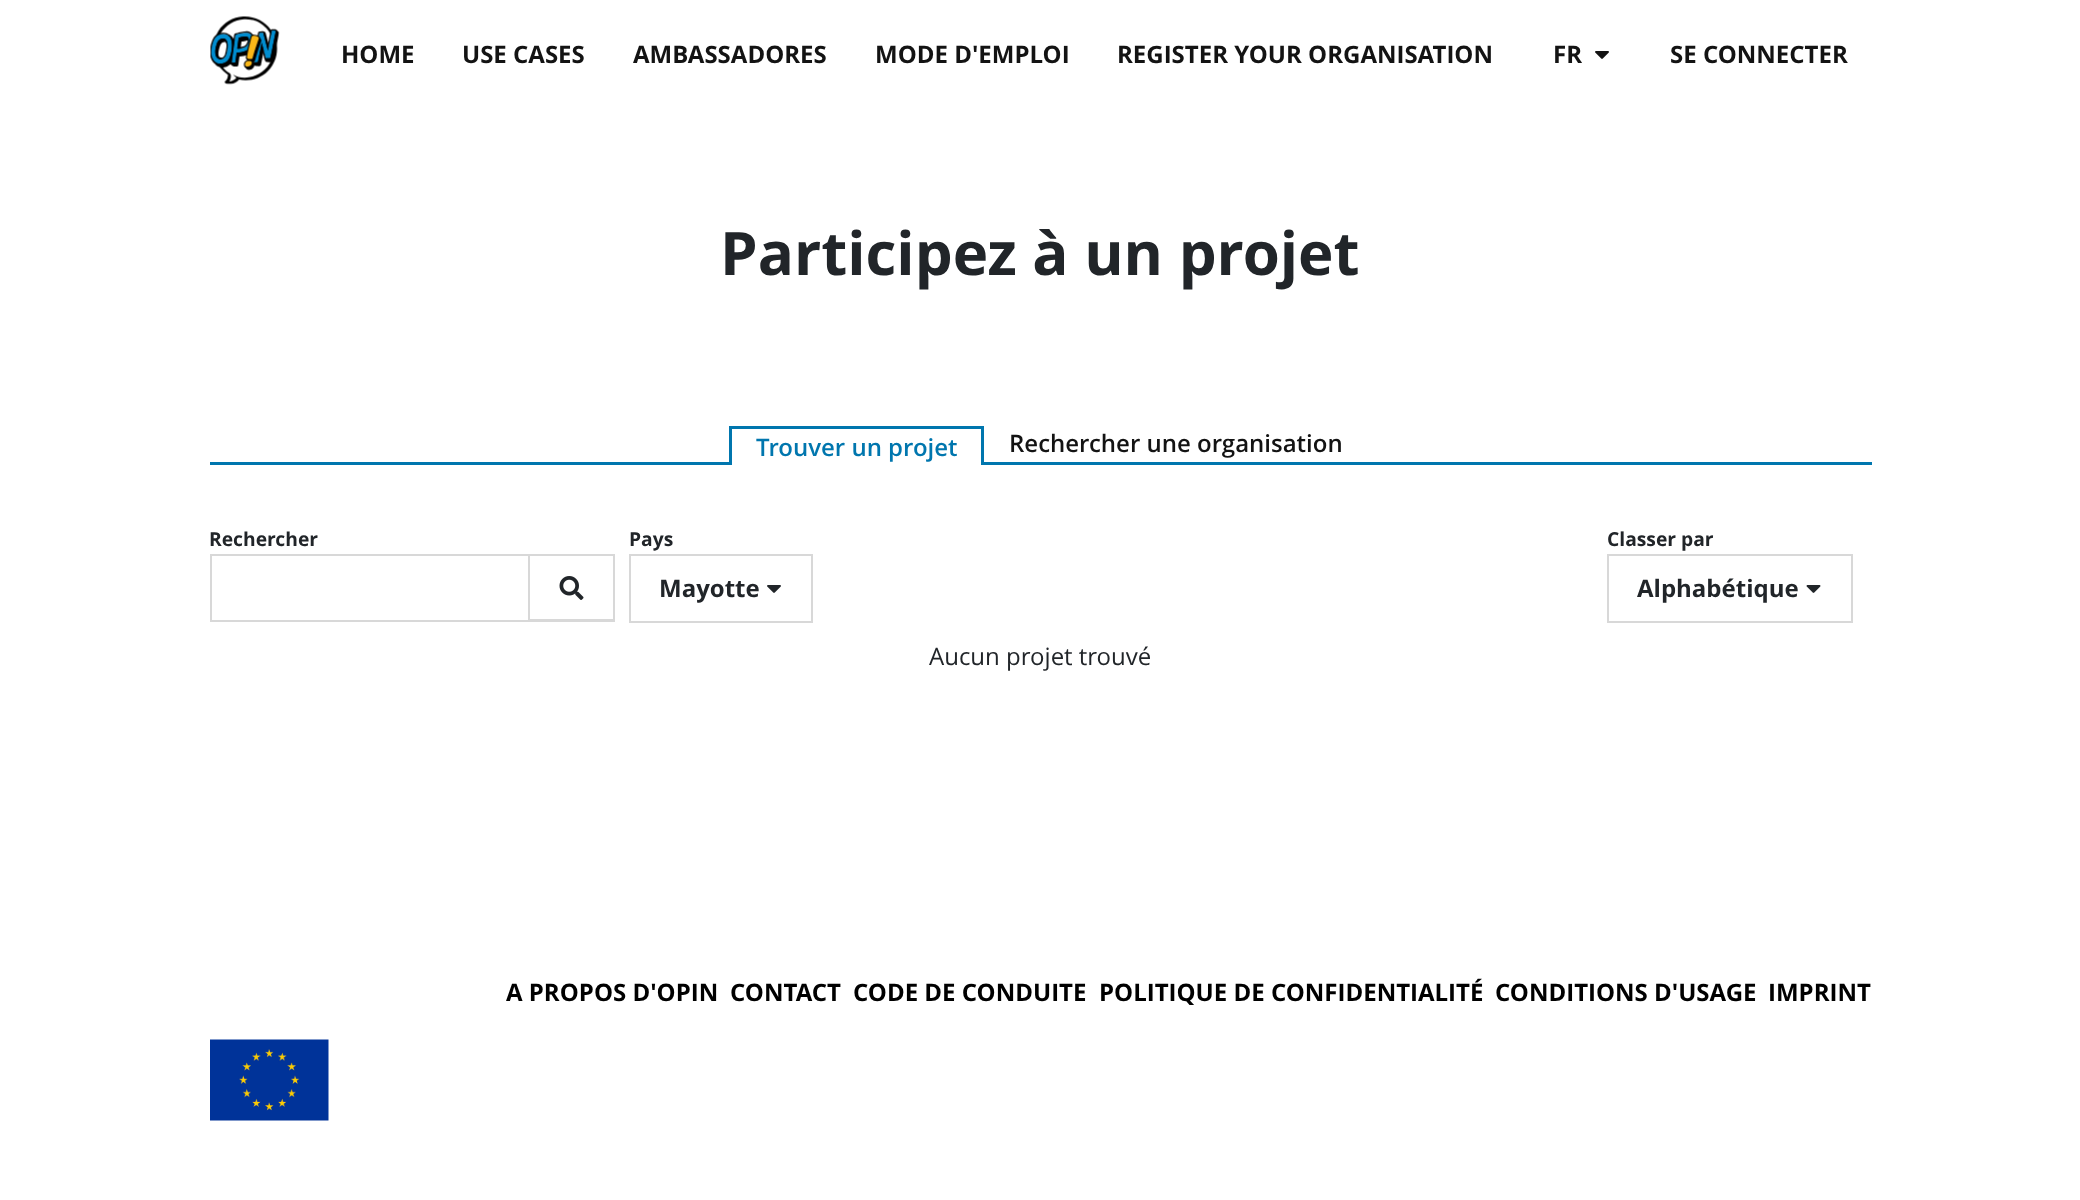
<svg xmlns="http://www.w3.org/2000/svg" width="2080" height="1200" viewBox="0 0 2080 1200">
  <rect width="100%" height="100%" fill="rgb(255,255,255)"/>
  <image x="210" y="16" width="70" height="69" href="pic1.png"/>
  <g font-family="Open Sans" font-size="24" font-weight="bold" fill="rgb(19,19,19)">
    <text x="341" y="63">HOME</text>
    <text x="462" y="63">USE CASES</text>
    <text x="633" y="63">AMBASSADORES</text>
    <text x="875" y="63">MODE D'EMPLOI</text>
    <text x="1117" y="63">REGISTER YOUR ORGANISATION</text>
    <text x="1553" y="63">FR</text>
  </g>
  <image x="1595" y="51" width="14" height="8" href="pic2.png"/>
  <text x="1670" y="63" font-family="Open Sans" font-size="24" font-weight="bold" fill="rgb(19,19,19)">SE CONNECTER</text>
  <text x="720" y="275" font-family="Open Sans" font-size="60" font-weight="bold" fill="rgb(33,37,41)">Participez à un projet</text>
  <rect x="210" y="462" width="1662" height="3" fill="rgb(0,118,174)"/>
  <rect x="732" y="462" width="249" height="3" fill="rgb(255,255,255)"/>
  <rect x="729" y="426" width="255" height="3" fill="rgb(0,118,174)"/>
  <rect x="981" y="426" width="3" height="39" fill="rgb(0,118,174)"/>
  <rect x="729" y="426" width="3" height="39" fill="rgb(0,118,174)"/>
  <text x="756" y="456" font-family="Open Sans" font-size="24" font-weight="600" fill="rgb(0,118,174)">Trouver un projet</text>
  <text x="1009" y="452" font-family="Open Sans" font-size="24" font-weight="600" fill="rgb(19,19,19)">Rechercher une organisation</text>
  <text x="209" y="546" font-family="Open Sans" font-size="19.25" font-weight="bold" fill="rgb(33,37,41)">Rechercher</text>
  <rect x="210" y="554" width="318" height="2" fill="rgb(216,216,216)"/>
  <rect x="210" y="620" width="405" height="2" fill="rgb(216,216,216)"/>
  <rect x="210" y="554" width="2" height="67" fill="rgb(216,216,216)"/>
  <rect x="529" y="555" width="85" height="65" fill="none" stroke="rgb(216,216,216)" stroke-width="2"/>
  <image x="559" y="576" width="25" height="24" href="pic3.png"/>
  <text x="629" y="546" font-family="Open Sans" font-size="19.25" font-weight="bold" fill="rgb(33,37,41)">Pays</text>
  <rect x="630" y="555" width="182" height="67" fill="none" stroke="rgb(216,216,216)" stroke-width="2"/>
  <text x="659" y="597" font-family="Open Sans" font-size="24" font-weight="bold" fill="rgb(33,37,41)">Mayotte</text>
  <image x="767" y="585" width="14" height="8" href="pic4.png"/>
  <text x="1607" y="546" font-family="Open Sans" font-size="19.25" font-weight="bold" fill="rgb(33,37,41)">Classer par</text>
  <rect x="1608" y="555" width="244" height="67" fill="none" stroke="rgb(216,216,216)" stroke-width="2"/>
  <text x="1637" y="597" font-family="Open Sans" font-size="24" font-weight="bold" fill="rgb(33,37,41)">Alphabétique</text>
  <image x="1806" y="585" width="15" height="8" href="pic5.png"/>
  <text x="929" y="665" font-family="Open Sans" font-size="24" fill="rgb(33,37,41)">Aucun projet trouvé</text>
  <g font-family="Open Sans" font-size="24" font-weight="bold" fill="rgb(0,0,0)">
    <text x="506" y="1001">A PROPOS D'OPIN</text>
    <text x="730" y="1001">CONTACT</text>
    <text x="853" y="1001">CODE DE CONDUITE</text>
    <text x="1099" y="1001">POLITIQUE DE CONFIDENTIALITÉ</text>
    <text x="1495" y="1001">CONDITIONS D'USAGE</text>
    <text x="1768" y="1001">IMPRINT</text>
  </g>
  <image x="210" y="1039" width="119" height="82" href="pic6.png"/>
</svg>
